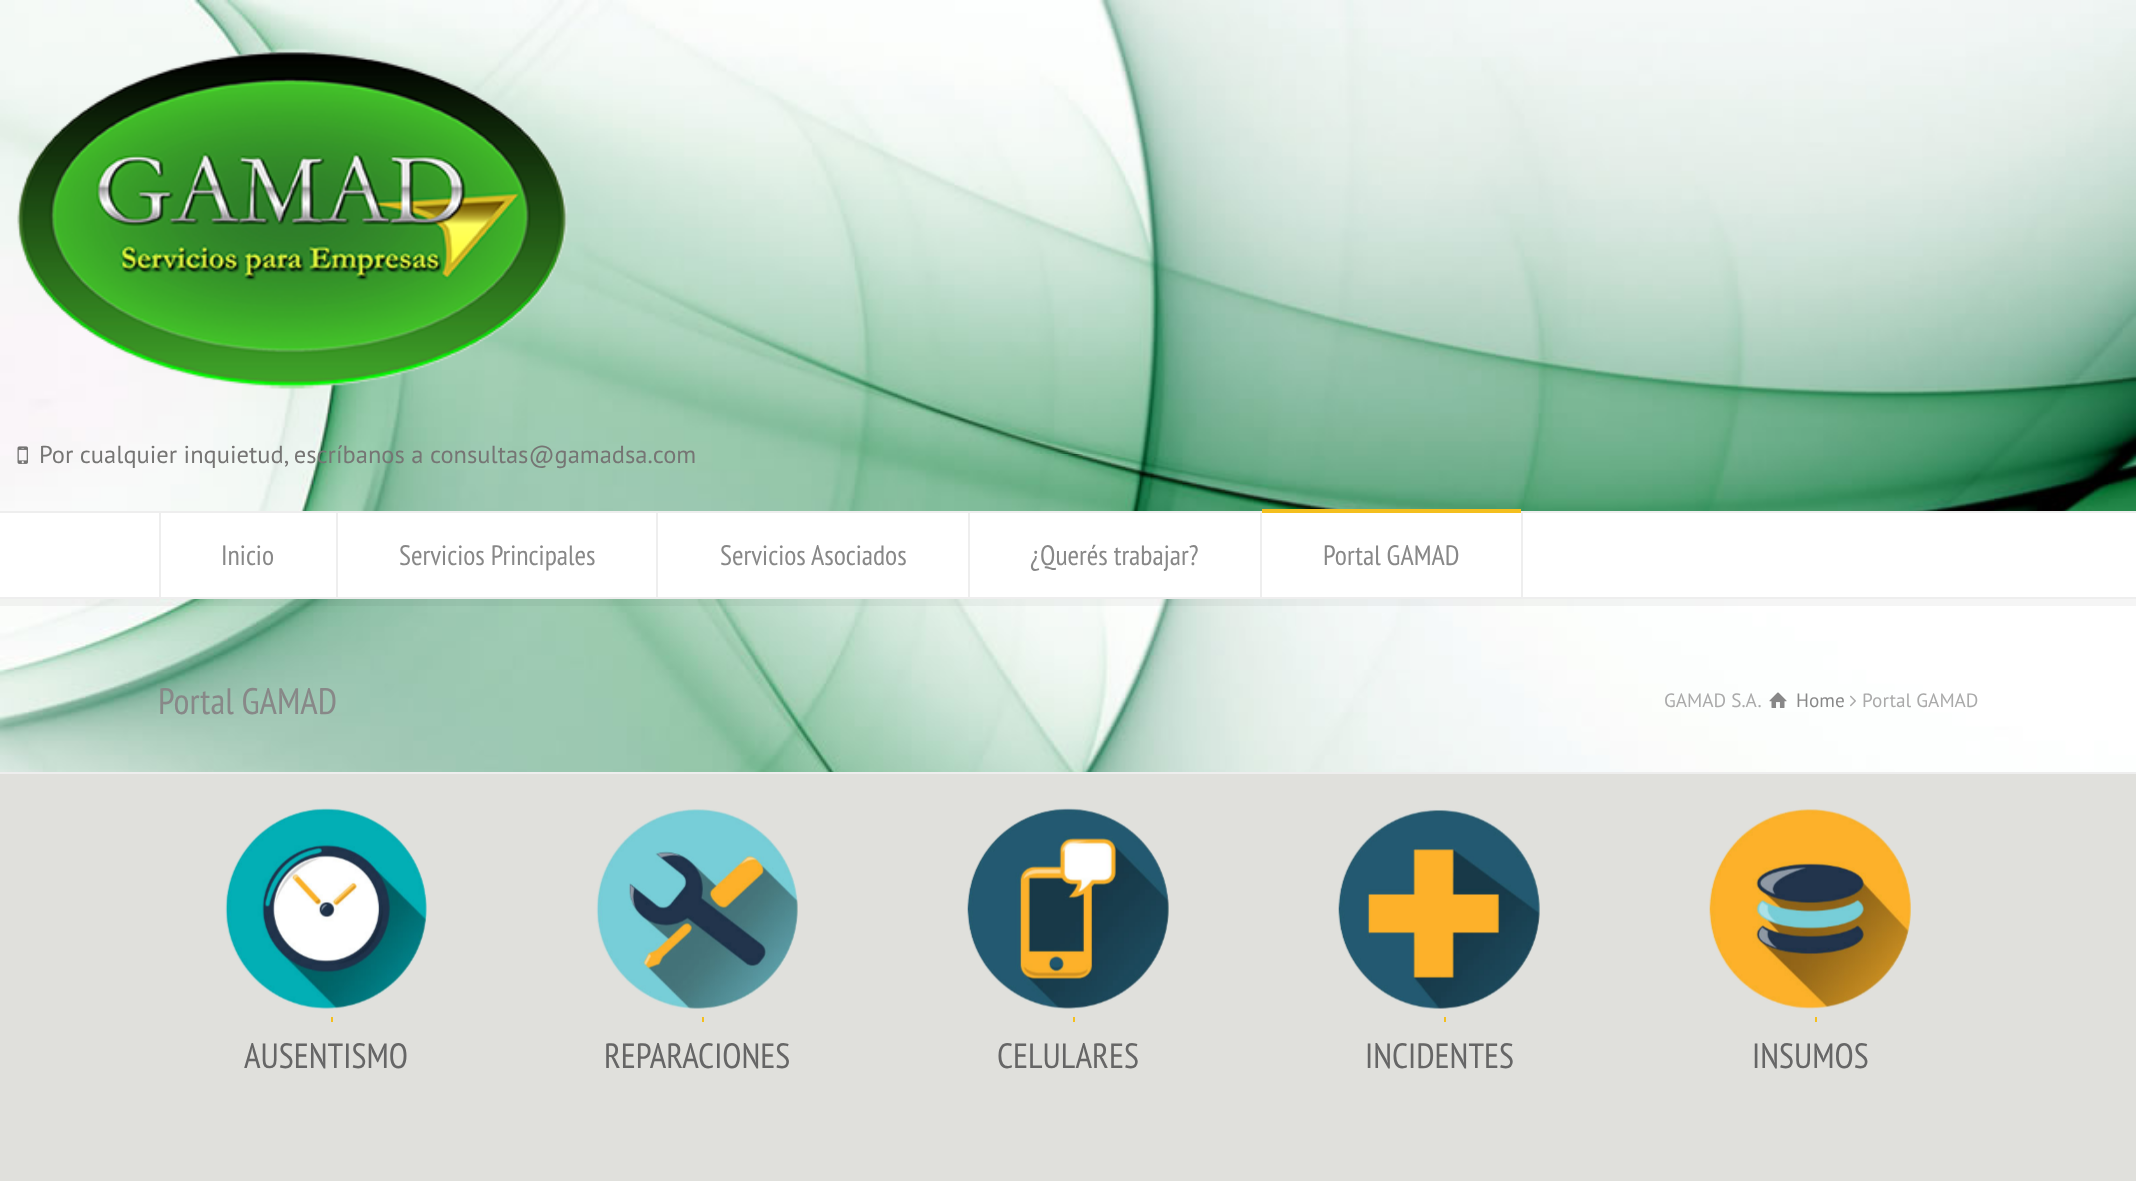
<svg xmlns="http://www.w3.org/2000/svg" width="2136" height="1181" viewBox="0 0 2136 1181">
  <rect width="100%" height="100%" fill="rgb(255,255,255)"/>
  <image x="0" y="0" width="2136" height="511" href="pic1.png"/>
  <image x="17" y="48" width="551" height="341" href="pic2.png"/>
  <image x="17" y="446" width="11" height="18" href="pic3.png"/>
  <text x="39" y="463" font-family="PT Sans" font-size="24.5" fill="rgb(118,117,116)">Por cualquier inquietud, escríbanos a consultas@gamadsa.com</text>
  <image x="0" y="599" width="2136" height="173" href="pic4.png"/>
  <path d="M0 598V606H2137V518V598Z" fill="rgba(0,0,0,0.04)"/>
  <rect x="0" y="511" width="2136" height="2" fill="rgb(238,238,238)"/>
  <rect x="0" y="597" width="2136" height="2" fill="rgb(238,238,238)"/>
  <rect x="336" y="513" width="2" height="84" fill="rgb(238,238,238)"/>
  <rect x="159" y="513" width="2" height="84" fill="rgb(238,238,238)"/>
  <text x="221" y="565" font-family="PT Sans Narrow" font-size="28" fill="rgb(136,136,136)">Inicio</text>
  <rect x="656" y="513" width="2" height="84" fill="rgb(238,238,238)"/>
  <text x="399" y="565" font-family="PT Sans Narrow" font-size="28" fill="rgb(136,136,136)">Servicios Principales</text>
  <rect x="968" y="513" width="2" height="84" fill="rgb(238,238,238)"/>
  <text x="720" y="565" font-family="PT Sans Narrow" font-size="28" fill="rgb(136,136,136)">Servicios Asociados</text>
  <rect x="1260" y="513" width="2" height="84" fill="rgb(238,238,238)"/>
  <text x="1030" y="565" font-family="PT Sans Narrow" font-size="28" fill="rgb(136,136,136)">¿Querés trabajar?</text>
  <rect x="1521" y="513" width="2" height="84" fill="rgb(238,238,238)"/>
  <rect x="1262" y="509" width="259" height="4" fill="rgb(244,191,30)"/>
  <text x="1323" y="565" font-family="PT Sans Narrow" font-size="28" fill="rgb(136,136,136)">Portal GAMAD</text>
  <rect x="0" y="772" width="2136" height="2" fill="rgb(238,238,238)"/>
  <text x="158" y="714" font-family="PT Sans Narrow" font-size="36.75" fill="rgb(136,136,136)">Portal GAMAD</text>
  <text x="1664" y="707" font-family="PT Sans" font-size="19.25" fill="rgb(170,170,170)">GAMAD S.A.</text>
  <image x="1769" y="692" width="18" height="16" href="pic5.png"/>
  <text x="1796" y="707" font-family="PT Sans" font-size="19.25" fill="rgb(136,136,136)">Home</text>
  <image x="1850" y="695" width="6" height="12" href="pic6.png"/>
  <text x="1862" y="707" font-family="PT Sans" font-size="19.25" fill="rgb(170,170,170)">Portal GAMAD</text>
  <rect x="0" y="774" width="2136" height="407" fill="rgb(224,224,220)"/>
  <image x="225" y="808" width="202" height="201" href="pic7.png"/>
  <rect x="331" y="1017" width="2" height="5" fill="rgb(244,191,30)"/>
  <text x="244" y="1068" font-family="PT Sans Narrow" font-size="35" fill="rgb(102,102,102)">AUSENTISMO</text>
  <image x="596" y="809" width="202" height="200" href="pic8.png"/>
  <rect x="702" y="1017" width="2" height="5" fill="rgb(244,191,30)"/>
  <text x="604" y="1068" font-family="PT Sans Narrow" font-size="35" fill="rgb(102,102,102)">REPARACIONES</text>
  <image x="967" y="808" width="202" height="201" href="pic9.png"/>
  <rect x="1073" y="1017" width="2" height="5" fill="rgb(244,191,30)"/>
  <text x="997" y="1068" font-family="PT Sans Narrow" font-size="35" fill="rgb(102,102,102)">CELULARES</text>
  <image x="1338" y="809" width="202" height="200" href="pic10.png"/>
  <rect x="1444" y="1017" width="2" height="5" fill="rgb(244,191,30)"/>
  <text x="1365" y="1068" font-family="PT Sans Narrow" font-size="35" fill="rgb(102,102,102)">INCIDENTES</text>
  <image x="1709" y="809" width="202" height="201" href="pic11.png"/>
  <rect x="1815" y="1017" width="2" height="5" fill="rgb(244,191,30)"/>
  <text x="1752" y="1068" font-family="PT Sans Narrow" font-size="35" fill="rgb(102,102,102)">INSUMOS</text>
</svg>
